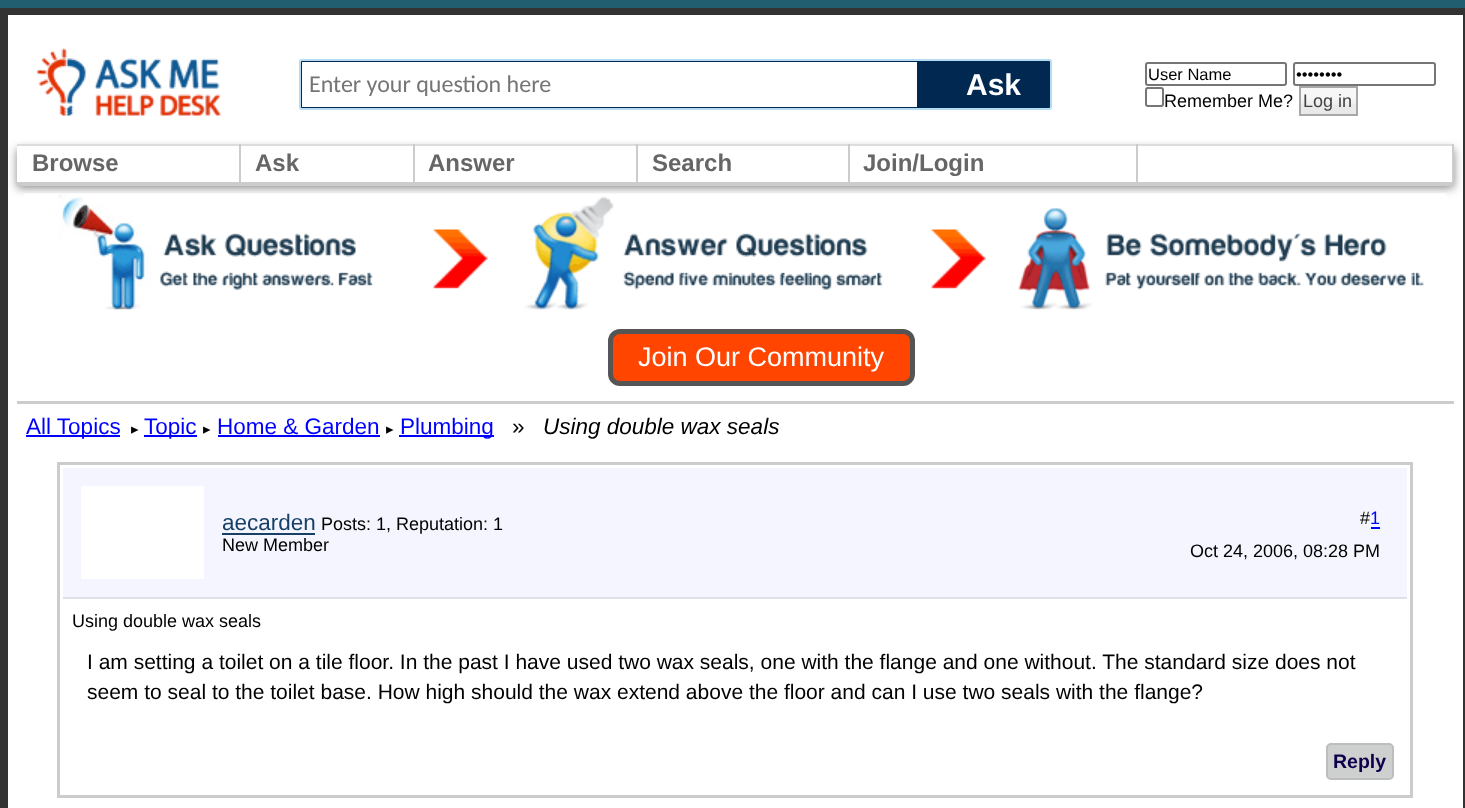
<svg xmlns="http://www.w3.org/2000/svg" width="1465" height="808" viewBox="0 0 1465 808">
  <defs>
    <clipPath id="clip1"><path d="M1 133H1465V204H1ZM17 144H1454V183H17Z" clip-rule="evenodd"/></clipPath>
  </defs>
  <rect width="100%" height="100%" fill="rgb(33,94,112)"/>
  <rect x="8" y="15" width="1455" height="793" fill="rgb(255,255,255)"/>
  <rect x="0" y="8" width="1465" height="7" fill="rgb(51,51,51)"/>
  <g clip-path="url(#clip1)">
    <rect x="17" y="149" width="1437" height="39" fill="rgb(136,136,136)" filter="blur(5px)"/>
  </g>
  <rect x="1463" y="8" width="2" height="800" fill="rgb(51,51,51)"/>
  <rect x="0" y="8" width="8" height="800" fill="rgb(51,51,51)"/>
  <image x="37" y="48" width="184" height="68" href="pic1.png"/>
  <rect x="300" y="60" width="751" height="49" rx="2" fill="rgb(0,40,81)" stroke="rgb(179,220,243)" stroke-width="2"/>
  <rect x="302" y="62" width="615" height="45" fill="rgb(255,255,255)"/>
  <text x="309" y="92" font-family="Carlito" font-size="24" fill="rgb(117,117,117)">Enter your question here</text>
  <text x="966" y="95" font-family="Liberation Sans" font-size="30" font-weight="bold" fill="rgb(255,255,255)">Ask</text>
  <rect x="1146" y="63" width="140" height="22" rx="2" fill="none" stroke="rgb(118,118,118)" stroke-width="2"/>
  <text x="1148" y="80" font-family="Liberation Sans" font-size="16.5" fill="rgb(0,0,0)">User Name</text>
  <rect x="1294" y="63" width="141" height="22" rx="2" fill="none" stroke="rgb(118,118,118)" stroke-width="2"/>
  <text x="1296" y="80" font-family="Liberation Sans" font-size="16.5" fill="rgb(0,0,0)">••••••••</text>
  <rect x="1146" y="88" width="17" height="18" rx="2" fill="none" stroke="rgb(118,118,118)" stroke-width="2"/>
  <text x="1164" y="107" font-family="Liberation Sans" font-size="18" fill="rgb(0,0,0)">Remember Me?</text>
  <rect x="1301" y="88" width="55" height="26" fill="rgb(233,233,233)"/>
  <image x="1301" y="88" width="55" height="17" href="pic2.png"/>
  <rect x="1300" y="87" width="57" height="28" fill="none" stroke="rgb(168,168,168)" stroke-width="2"/>
  <text x="1303" y="107" font-family="Liberation Sans" font-size="18" fill="rgb(66,66,66)">Log in</text>
  <rect x="17" y="144" width="1437" height="2" fill="rgb(221,221,221)"/>
  <rect x="17" y="182" width="1437" height="4" fill="rgb(204,204,204)"/>
  <rect x="239" y="144" width="2" height="39" fill="rgb(204,204,204)"/>
  <text x="32" y="171" font-family="Liberation Sans" font-size="24" font-weight="bold" fill="rgb(102,102,102)">Browse</text>
  <rect x="413" y="144" width="2" height="39" fill="rgb(204,204,204)"/>
  <text x="255" y="171" font-family="Liberation Sans" font-size="24" font-weight="bold" fill="rgb(102,102,102)">Ask</text>
  <rect x="636" y="144" width="2" height="39" fill="rgb(204,204,204)"/>
  <text x="428" y="171" font-family="Liberation Sans" font-size="24" font-weight="bold" fill="rgb(102,102,102)">Answer</text>
  <rect x="848" y="144" width="2" height="39" fill="rgb(204,204,204)"/>
  <text x="652" y="171" font-family="Liberation Sans" font-size="24" font-weight="bold" fill="rgb(102,102,102)">Search</text>
  <rect x="1136" y="144" width="2" height="39" fill="rgb(204,204,204)"/>
  <text x="863" y="171" font-family="Liberation Sans" font-size="24" font-weight="bold" fill="rgb(102,102,102)">Join/Login</text>
  <rect x="1452" y="144" width="2" height="39" fill="rgb(204,204,204)"/>
  <rect x="17" y="401" width="1437" height="3" fill="rgb(204,204,204)"/>
  <image x="24" y="193" width="1422" height="117" href="pic3.png"/>
  <rect x="610.5" y="331.5" width="302" height="52" rx="9.5" fill="rgb(255,69,0)" stroke="rgb(85,85,85)" stroke-width="5"/>
  <text x="638" y="366" font-family="Liberation Sans" font-size="27" fill="rgb(255,255,255)">Join Our Community</text>
  <rect x="26" y="435" width="94" height="2" fill="rgb(0,0,255)"/>
  <text x="26" y="434" font-family="Liberation Sans" font-size="22.5" fill="rgb(0,0,255)">All Topics</text>
  <text x="131" y="434" font-family="DejaVu Sans" font-size="15" fill="rgb(0,0,0)">▸</text>
  <rect x="144" y="435" width="53" height="2" fill="rgb(0,0,255)"/>
  <text x="144" y="434" font-family="Liberation Sans" font-size="22.5" fill="rgb(0,0,255)">Topic</text>
  <text x="203" y="434" font-family="DejaVu Sans" font-size="15" fill="rgb(0,0,0)">▸</text>
  <text x="217" y="434" font-family="Liberation Sans" font-size="22.5" fill="rgb(0,0,255)">Home &amp; Garden</text>
  <rect x="218" y="435" width="162" height="2" fill="rgb(0,0,255)"/>
  <text x="386" y="434" font-family="DejaVu Sans" font-size="15" fill="rgb(0,0,0)">▸</text>
  <rect x="399" y="435" width="95" height="2" fill="rgb(0,0,255)"/>
  <text x="400" y="434" font-family="Liberation Sans" font-size="22.5" fill="rgb(0,0,255)">Plumbing</text>
  <text x="512" y="434" font-family="Liberation Sans" font-size="22.5" fill="rgb(0,0,0)">»</text>
  <text x="543" y="434" font-family="Liberation Sans" font-size="22.5" font-style="italic" fill="rgb(0,0,0)">Using double wax seals</text>
  <rect x="58.5" y="463.5" width="1353" height="333" fill="none" stroke="rgb(204,204,204)" stroke-width="3"/>
  <rect x="63" y="468" width="1344" height="129" fill="rgb(245,245,255)"/>
  <rect x="63" y="597" width="1344" height="2" fill="rgb(224,224,233)"/>
  <rect x="81" y="486" width="123" height="93" fill="rgb(255,255,255)"/>
  <text x="222" y="530" font-family="Liberation Sans" font-size="22.5" fill="rgb(22,64,101)">aecarden</text>
  <rect x="222" y="533" width="93" height="2" fill="rgb(22,64,101)"/>
  <g font-family="Liberation Sans" font-size="18" fill="rgb(0,0,0)">
    <text x="321" y="530">Posts: 1, Reputation: 1</text>
    <text x="222" y="551">New Member</text>
    <text x="1360" y="524">#</text>
  </g>
  <text x="1370" y="524" font-family="Liberation Sans" font-size="18" fill="rgb(0,0,255)">1</text>
  <rect x="1371" y="527" width="9" height="2" fill="rgb(0,0,255)"/>
  <g font-family="Liberation Sans" font-size="18" fill="rgb(0,0,0)">
    <text x="1190" y="557">Oct 24, 2006, 08:28 PM</text>
    <text x="72" y="627">Using double wax seals</text>
  </g>
  <g font-family="Liberation Sans" font-size="21" fill="rgb(0,0,0)">
    <text>
      <tspan x="87" y="669">I am setting a toilet on a tile floor. In the past I have used two wax seals, one with the flange and one without. The standard size does not</tspan>
      <tspan x="87" y="699">seem to seal to the toilet base. How high should the wax extend above the floor and can I use two seals with the flange?</tspan>
    </text>
  </g>
  <rect x="1327" y="744" width="66" height="35" rx="4" fill="rgb(206,207,207)" stroke="rgb(188,190,190)" stroke-width="2"/>
  <text x="1333" y="768" font-family="Liberation Sans" font-size="19.5" font-weight="bold" fill="rgb(16,0,75)">Reply</text>
</svg>
